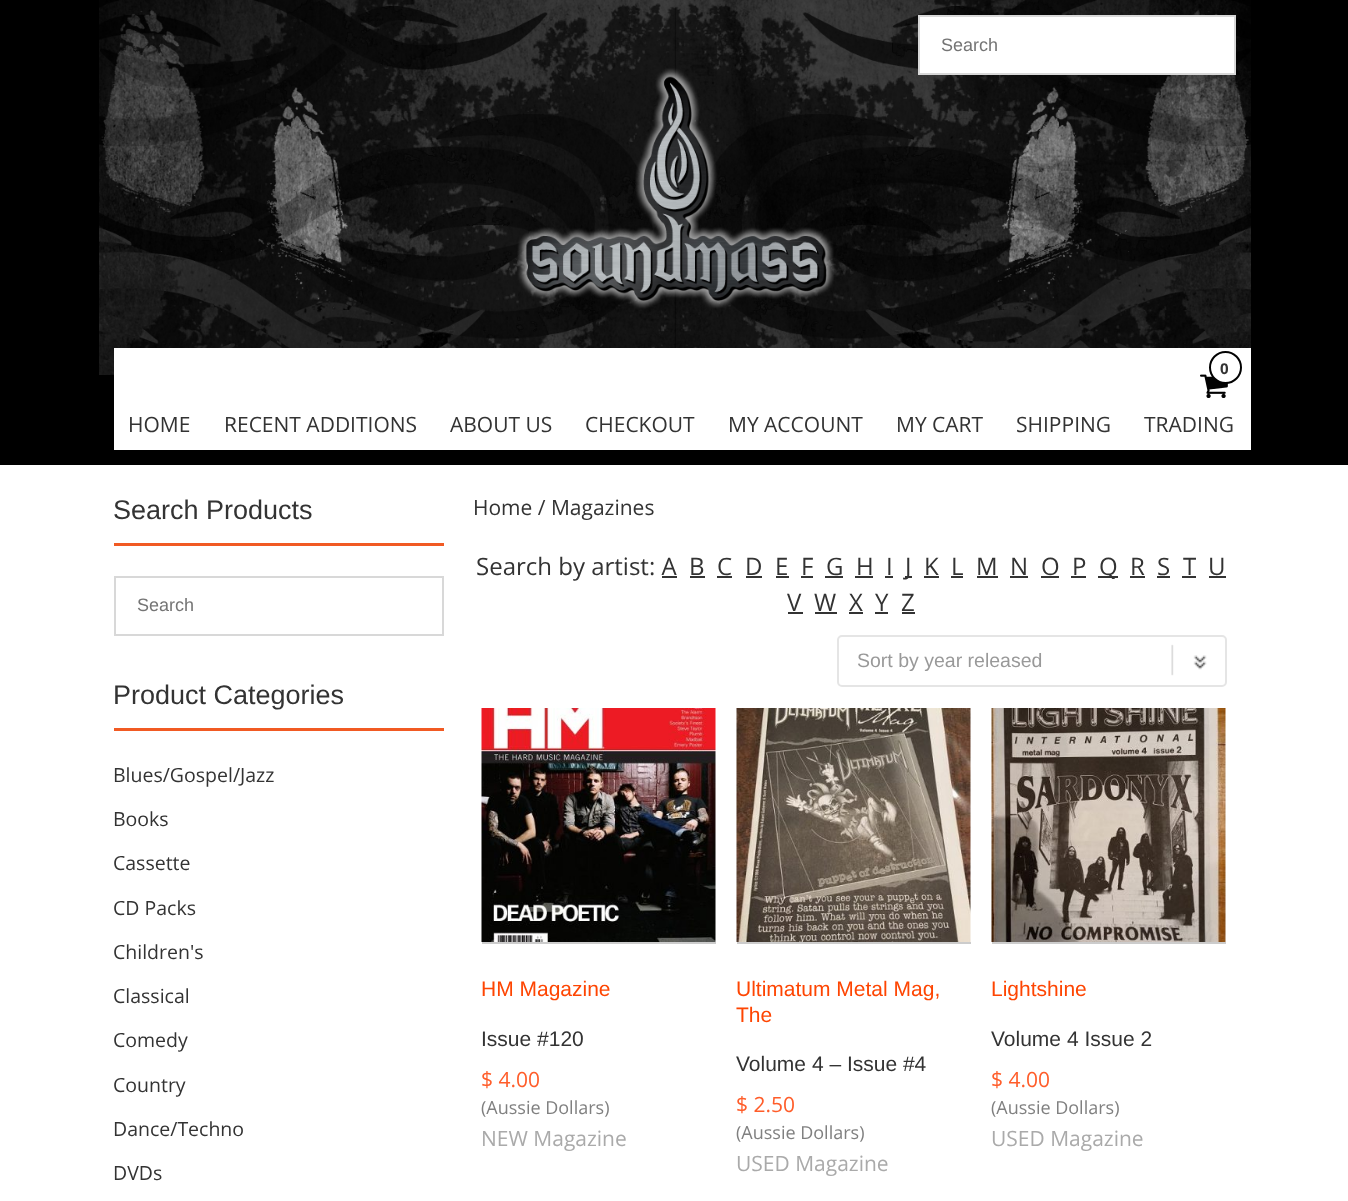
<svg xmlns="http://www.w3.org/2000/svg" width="1348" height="1201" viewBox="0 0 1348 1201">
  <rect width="100%" height="100%" fill="rgb(255,255,255)"/>
  <rect x="0" y="0" width="1348" height="465" fill="rgb(0,0,0)"/>
  <image x="99" y="0" width="1152" height="375" href="pic1.png"/>
  <rect x="919" y="16" width="316" height="58" fill="rgb(255,255,255)" stroke="rgb(216,216,216)" stroke-width="2"/>
  <text x="941" y="51" font-family="Liberation Sans" font-size="18" fill="rgb(117,117,117)">Search</text>
  <rect x="114" y="348" width="1137" height="102" fill="rgb(255,255,255)"/>
  <image x="1200" y="374" width="28" height="24" href="pic2.png"/>
  <circle cx="1225.5" cy="367.5" r="15.5" fill="rgb(255,255,255)" stroke="rgb(2,2,2)" stroke-width="2"/>
  <text x="1220" y="374" font-family="Open Sans" font-size="15" font-weight="bold" fill="rgb(51,51,51)">0</text>
  <g font-family="Open Sans" font-size="21" fill="rgb(51,51,51)">
    <text x="128" y="432">HOME</text>
    <text x="224" y="432">RECENT ADDITIONS</text>
    <text x="450" y="432">ABOUT US</text>
    <text x="585" y="432">CHECKOUT</text>
    <text x="728" y="432">MY ACCOUNT</text>
    <text x="896" y="432">MY CART</text>
    <text x="1016" y="432">SHIPPING</text>
    <text x="1144" y="432">TRADING</text>
  </g>
  <rect x="114" y="543" width="330" height="3" fill="rgb(241,90,35)"/>
  <text x="113" y="519" font-family="Liberation Sans" font-size="27" fill="rgb(51,51,51)">Search Products</text>
  <rect x="115" y="577" width="328" height="58" fill="none" stroke="rgb(216,216,216)" stroke-width="2"/>
  <text x="137" y="611" font-family="Liberation Sans" font-size="18" fill="rgb(117,117,117)">Search</text>
  <rect x="114" y="728" width="330" height="3" fill="rgb(241,90,35)"/>
  <text x="113" y="704" font-family="Liberation Sans" font-size="27" fill="rgb(51,51,51)">Product Categories</text>
  <g font-family="Open Sans" font-size="19.5" fill="rgb(51,51,51)">
    <text x="113" y="782">Blues/Gospel/Jazz</text>
    <text x="113" y="826">Books</text>
    <text x="113" y="870">Cassette</text>
    <text x="113" y="915">CD Packs</text>
    <text x="113" y="959">Children's</text>
    <text x="113" y="1003">Classical</text>
    <text x="113" y="1047">Comedy</text>
    <text x="113" y="1092">Country</text>
    <text x="113" y="1136">Dance/Techno</text>
    <text x="113" y="1180">DVDs</text>
  </g>
  <text x="473" y="515" font-family="Open Sans" font-size="21" fill="rgb(51,51,51)">Home / Magazines</text>
  <g font-family="Open Sans" font-size="24" fill="rgb(51,51,51)">
    <text x="476" y="575">Search by artist: A</text>
    <text x="689" y="575">B</text>
  </g>
  <rect x="690" y="576" width="15" height="2" fill="rgb(51,51,51)"/>
  <text x="717" y="575" font-family="Open Sans" font-size="24" fill="rgb(51,51,51)">C</text>
  <rect x="717" y="576" width="15" height="2" fill="rgb(51,51,51)"/>
  <text x="745" y="575" font-family="Open Sans" font-size="24" fill="rgb(51,51,51)">D</text>
  <rect x="746" y="576" width="16" height="2" fill="rgb(51,51,51)"/>
  <text x="775" y="575" font-family="Open Sans" font-size="24" fill="rgb(51,51,51)">E</text>
  <rect x="776" y="576" width="13" height="2" fill="rgb(51,51,51)"/>
  <text x="801" y="575" font-family="Open Sans" font-size="24" fill="rgb(51,51,51)">F</text>
  <rect x="801" y="576" width="12" height="2" fill="rgb(51,51,51)"/>
  <text x="826" y="575" font-family="Open Sans" font-size="24" fill="rgb(51,51,51)">G</text>
  <rect x="825" y="576" width="18" height="2" fill="rgb(51,51,51)"/>
  <text x="856" y="575" font-family="Open Sans" font-size="24" fill="rgb(51,51,51)">H</text>
  <rect x="855" y="576" width="18" height="2" fill="rgb(51,51,51)"/>
  <text x="886" y="575" font-family="Open Sans" font-size="24" fill="rgb(51,51,51)">I</text>
  <rect x="885" y="576" width="8" height="2" fill="rgb(51,51,51)"/>
  <rect x="905" y="576" width="7" height="2" fill="rgb(51,51,51)"/>
  <g font-family="Open Sans" font-size="24" fill="rgb(51,51,51)">
    <text x="905" y="575">J</text>
    <text x="924" y="575">K</text>
  </g>
  <rect x="924" y="576" width="15" height="2" fill="rgb(51,51,51)"/>
  <text x="951" y="575" font-family="Open Sans" font-size="24" fill="rgb(51,51,51)">L</text>
  <rect x="951" y="576" width="12" height="2" fill="rgb(51,51,51)"/>
  <text x="976" y="575" font-family="Open Sans" font-size="24" fill="rgb(51,51,51)">M</text>
  <rect x="977" y="576" width="21" height="2" fill="rgb(51,51,51)"/>
  <text x="1010" y="575" font-family="Open Sans" font-size="24" fill="rgb(51,51,51)">N</text>
  <rect x="1010" y="576" width="18" height="2" fill="rgb(51,51,51)"/>
  <text x="1041" y="575" font-family="Open Sans" font-size="24" fill="rgb(51,51,51)">O</text>
  <rect x="1041" y="576" width="18" height="2" fill="rgb(51,51,51)"/>
  <text x="1072" y="575" font-family="Open Sans" font-size="24" fill="rgb(51,51,51)">P</text>
  <rect x="1071" y="576" width="15" height="2" fill="rgb(51,51,51)"/>
  <rect x="1098" y="576" width="20" height="2" fill="rgb(51,51,51)"/>
  <g font-family="Open Sans" font-size="24" fill="rgb(51,51,51)">
    <text x="1099" y="575">Q</text>
    <text x="1130" y="575">R</text>
  </g>
  <rect x="1130" y="576" width="15" height="2" fill="rgb(51,51,51)"/>
  <text x="1157" y="575" font-family="Open Sans" font-size="24" fill="rgb(51,51,51)">S</text>
  <rect x="1157" y="576" width="13" height="2" fill="rgb(51,51,51)"/>
  <text x="1183" y="575" font-family="Open Sans" font-size="24" fill="rgb(51,51,51)">T</text>
  <rect x="1182" y="576" width="14" height="2" fill="rgb(51,51,51)"/>
  <text x="1208" y="575" font-family="Open Sans" font-size="24" fill="rgb(51,51,51)">U</text>
  <rect x="1209" y="576" width="17" height="2" fill="rgb(51,51,51)"/>
  <rect x="662" y="576" width="15" height="2" fill="rgb(51,51,51)"/>
  <text x="787" y="611" font-family="Open Sans" font-size="24" fill="rgb(51,51,51)">V</text>
  <rect x="788" y="612" width="15" height="2" fill="rgb(51,51,51)"/>
  <text x="814" y="611" font-family="Open Sans" font-size="24" fill="rgb(51,51,51)">W</text>
  <rect x="815" y="612" width="22" height="2" fill="rgb(51,51,51)"/>
  <text x="849" y="611" font-family="Open Sans" font-size="24" fill="rgb(51,51,51)">X</text>
  <rect x="849" y="612" width="14" height="2" fill="rgb(51,51,51)"/>
  <text x="875" y="611" font-family="Open Sans" font-size="24" fill="rgb(51,51,51)">Y</text>
  <rect x="875" y="612" width="13" height="2" fill="rgb(51,51,51)"/>
  <text x="901" y="611" font-family="Open Sans" font-size="24" fill="rgb(51,51,51)">Z</text>
  <rect x="902" y="612" width="13" height="2" fill="rgb(51,51,51)"/>
  <image x="1171" y="644" width="36" height="32" href="pic3.png"/>
  <rect x="838" y="636" width="388" height="50" rx="4" fill="none" stroke="rgb(229,229,229)" stroke-width="2"/>
  <text x="857" y="667" font-family="Liberation Sans" font-size="19.5" fill="rgb(153,153,153)">Sort by year released</text>
  <rect x="482" y="942" width="234" height="2" fill="rgb(204,204,204)"/>
  <image x="481" y="708" width="235" height="234" href="pic4.png"/>
  <text x="481" y="996" font-family="Liberation Sans" font-size="21" fill="rgb(254,69,2)">HM Magazine</text>
  <text x="481" y="1046" font-family="Liberation Sans" font-size="21" fill="rgb(51,51,51)">Issue #120</text>
  <text x="481" y="1087" font-family="Open Sans" font-size="21" fill="rgb(255,93,42)">$ 4.00</text>
  <text x="481" y="1114" font-family="Open Sans" font-size="18" fill="rgb(128,128,128)">(Aussie Dollars)</text>
  <text x="481" y="1146" font-family="Open Sans" font-size="21" fill="rgb(170,170,170)">NEW Magazine</text>
  <rect x="737" y="942" width="234" height="2" fill="rgb(204,204,204)"/>
  <image x="736" y="708" width="235" height="234" href="pic5.png"/>
  <g font-family="Liberation Sans" font-size="21" fill="rgb(254,69,2)">
    <text>
      <tspan x="736" y="996">Ultimatum Metal Mag,</tspan>
      <tspan x="736" y="1022">The</tspan>
    </text>
  </g>
  <text x="736" y="1071" font-family="Liberation Sans" font-size="21" fill="rgb(51,51,51)">Volume 4 – Issue #4</text>
  <text x="736" y="1112" font-family="Open Sans" font-size="21" fill="rgb(255,93,42)">$ 2.50</text>
  <text x="736" y="1139" font-family="Open Sans" font-size="18" fill="rgb(128,128,128)">(Aussie Dollars)</text>
  <text x="736" y="1171" font-family="Open Sans" font-size="21" fill="rgb(170,170,170)">USED Magazine</text>
  <rect x="992" y="942" width="234" height="2" fill="rgb(204,204,204)"/>
  <image x="991" y="708" width="235" height="234" href="pic6.png"/>
  <text x="991" y="996" font-family="Liberation Sans" font-size="21" fill="rgb(254,69,2)">Lightshine</text>
  <text x="991" y="1046" font-family="Liberation Sans" font-size="21" fill="rgb(51,51,51)">Volume 4 Issue 2</text>
  <text x="991" y="1087" font-family="Open Sans" font-size="21" fill="rgb(255,93,42)">$ 4.00</text>
  <text x="991" y="1114" font-family="Open Sans" font-size="18" fill="rgb(128,128,128)">(Aussie Dollars)</text>
  <text x="991" y="1146" font-family="Open Sans" font-size="21" fill="rgb(170,170,170)">USED Magazine</text>
</svg>
